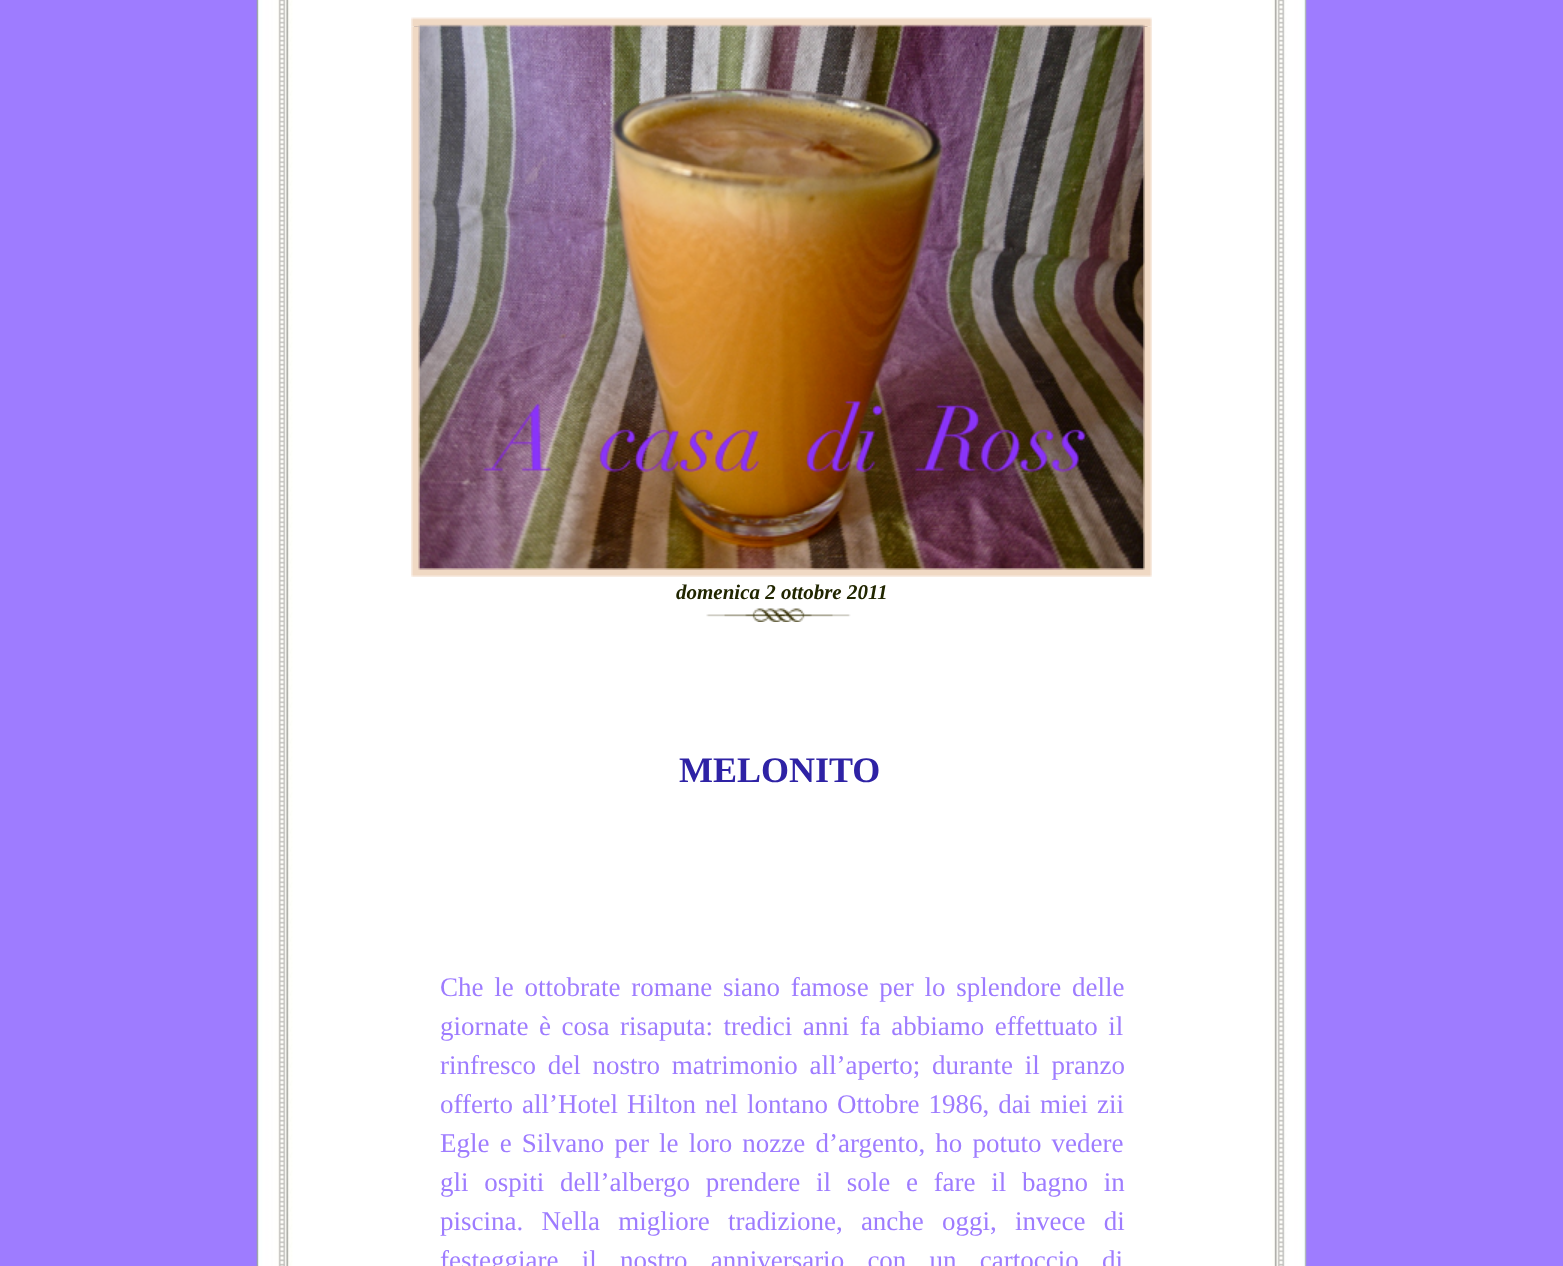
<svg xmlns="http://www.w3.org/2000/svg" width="1563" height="1266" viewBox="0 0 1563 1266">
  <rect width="100%" height="100%" fill="rgb(158,124,255)"/>
  <image x="256" y="0" width="1051" height="1266" href="pic1.png"/>
  <image x="414" y="24" width="734" height="546" href="pic5.png"/>
  <image x="411" y="26" width="9" height="542" href="pic6.png"/>
  <image x="411" y="17" width="9" height="10" href="pic2.png"/>
  <image x="420" y="17" width="723" height="10" href="pic3.png"/>
  <image x="1143" y="17" width="9" height="10" href="pic4.png"/>
  <image x="1143" y="26" width="9" height="542" href="pic7.png"/>
  <image x="411" y="568" width="9" height="9" href="pic8.png"/>
  <image x="420" y="568" width="723" height="9" href="pic9.png"/>
  <image x="1143" y="568" width="9" height="9" href="pic10.png"/>
  <text x="676" y="599" font-family="Liberation Serif" font-size="21" font-weight="bold" font-style="italic" fill="rgb(33,38,0)">domenica 2 ottobre 2011</text>
  <image x="706" y="608" width="145" height="14" href="pic11.png"/>
  <text x="679" y="782" font-family="Liberation Serif" font-size="36" font-weight="bold" fill="rgb(46,34,165)">MELONITO</text>
  <g font-family="Liberation Serif" font-size="27" fill="rgb(158,124,255)">
    <text>
      <tspan x="440" y="996" word-spacing="4">Che le ottobrate romane siano famose per lo splendore delle</tspan>
      <tspan x="440" y="1035" word-spacing="3.75">giornate è cosa risaputa: tredici anni fa abbiamo effettuato il</tspan>
      <tspan x="440" y="1074" word-spacing="5">rinfresco del nostro matrimonio all’aperto; durante il pranzo</tspan>
      <tspan x="440" y="1113" word-spacing="2.25">offerto all’Hotel Hilton nel lontano Ottobre 1986, dai miei zii</tspan>
      <tspan x="440" y="1152" word-spacing="3.4">Egle e Silvano per le loro nozze d’argento, ho potuto vedere</tspan>
      <tspan x="440" y="1191" word-spacing="9">gli ospiti dell’albergo prendere il sole e fare il bagno in</tspan>
      <tspan x="440" y="1230" word-spacing="11.5">piscina. Nella migliore tradizione, anche oggi, invece di</tspan>
      <tspan x="440" y="1269" word-spacing="16.5">festeggiare il nostro anniversario con un cartoccio di</tspan>
    </text>
  </g>
</svg>
